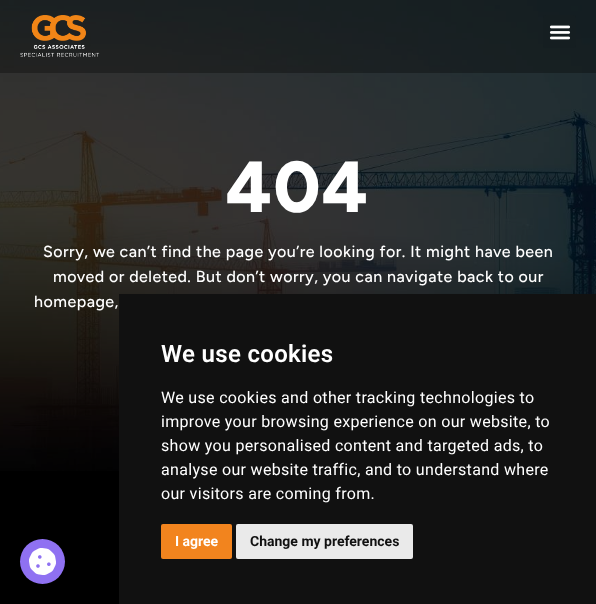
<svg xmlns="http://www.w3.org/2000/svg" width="596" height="604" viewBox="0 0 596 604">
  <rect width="100%" height="100%" fill="rgb(0,0,0)"/>
  <image x="0" y="0" width="596" height="471" href="pic3.png"/>
  <rect x="0" y="0" width="596" height="73" fill="rgba(0,0,0,0.3)"/>
  <image x="20" y="15" width="80" height="42" href="pic1.png"/>
  <rect x="543" y="15" width="33" height="33" rx="3" fill="rgb(21,30,33)"/>
  <image x="549" y="25" width="22" height="15" href="pic2.png"/>
  <text x="226" y="212" font-family="Figtree" font-size="72" font-weight="800" letter-spacing="1.5" fill="rgb(255,255,255)">404</text>
  <g font-family="Figtree" font-size="16" font-weight="500" letter-spacing="0.48" fill="rgb(255,255,255)">
    <text x="43" y="257">Sorry, we can’t find the page you’re looking for. It might have been</text>
    <text x="53" y="282">moved or deleted. But don’t worry, you can navigate back to our</text>
    <text x="34" y="307">homepage,</text>
  </g>
  <rect x="119" y="294" width="477" height="310" fill="rgb(17,17,17)"/>
  <text x="161" y="362" font-family="Roboto" font-size="24" font-weight="600" letter-spacing="0.32" fill="rgb(255,255,255)">We use cookies</text>
  <g font-family="Roboto" font-size="16" letter-spacing="0.32" fill="rgb(255,255,255)">
    <text>
      <tspan x="161" y="403">We use cookies and other tracking technologies to</tspan>
      <tspan x="161" y="427">improve your browsing experience on our website, to</tspan>
      <tspan x="161" y="451">show you personalised content and targeted ads, to</tspan>
      <tspan x="161" y="475">analyse our website traffic, and to understand where</tspan>
      <tspan x="161" y="499">our visitors are coming from.</tspan>
    </text>
  </g>
  <rect x="161" y="524" width="71" height="35" rx="2" fill="rgb(242,132,30)"/>
  <text x="175" y="546" font-family="Roboto" font-size="14" font-weight="bold" fill="rgb(255,255,255)">I agree</text>
  <rect x="236" y="524" width="177" height="35" rx="2" fill="rgb(234,234,234)"/>
  <text x="250" y="546" font-family="Roboto" font-size="14" font-weight="bold" fill="rgb(17,17,17)">Change my preferences</text>
  <circle cx="42.5" cy="561.5" r="22.5" fill="rgb(143,113,242)"/>
  <image x="29" y="548" width="27" height="27" href="pic4.png"/>
</svg>
